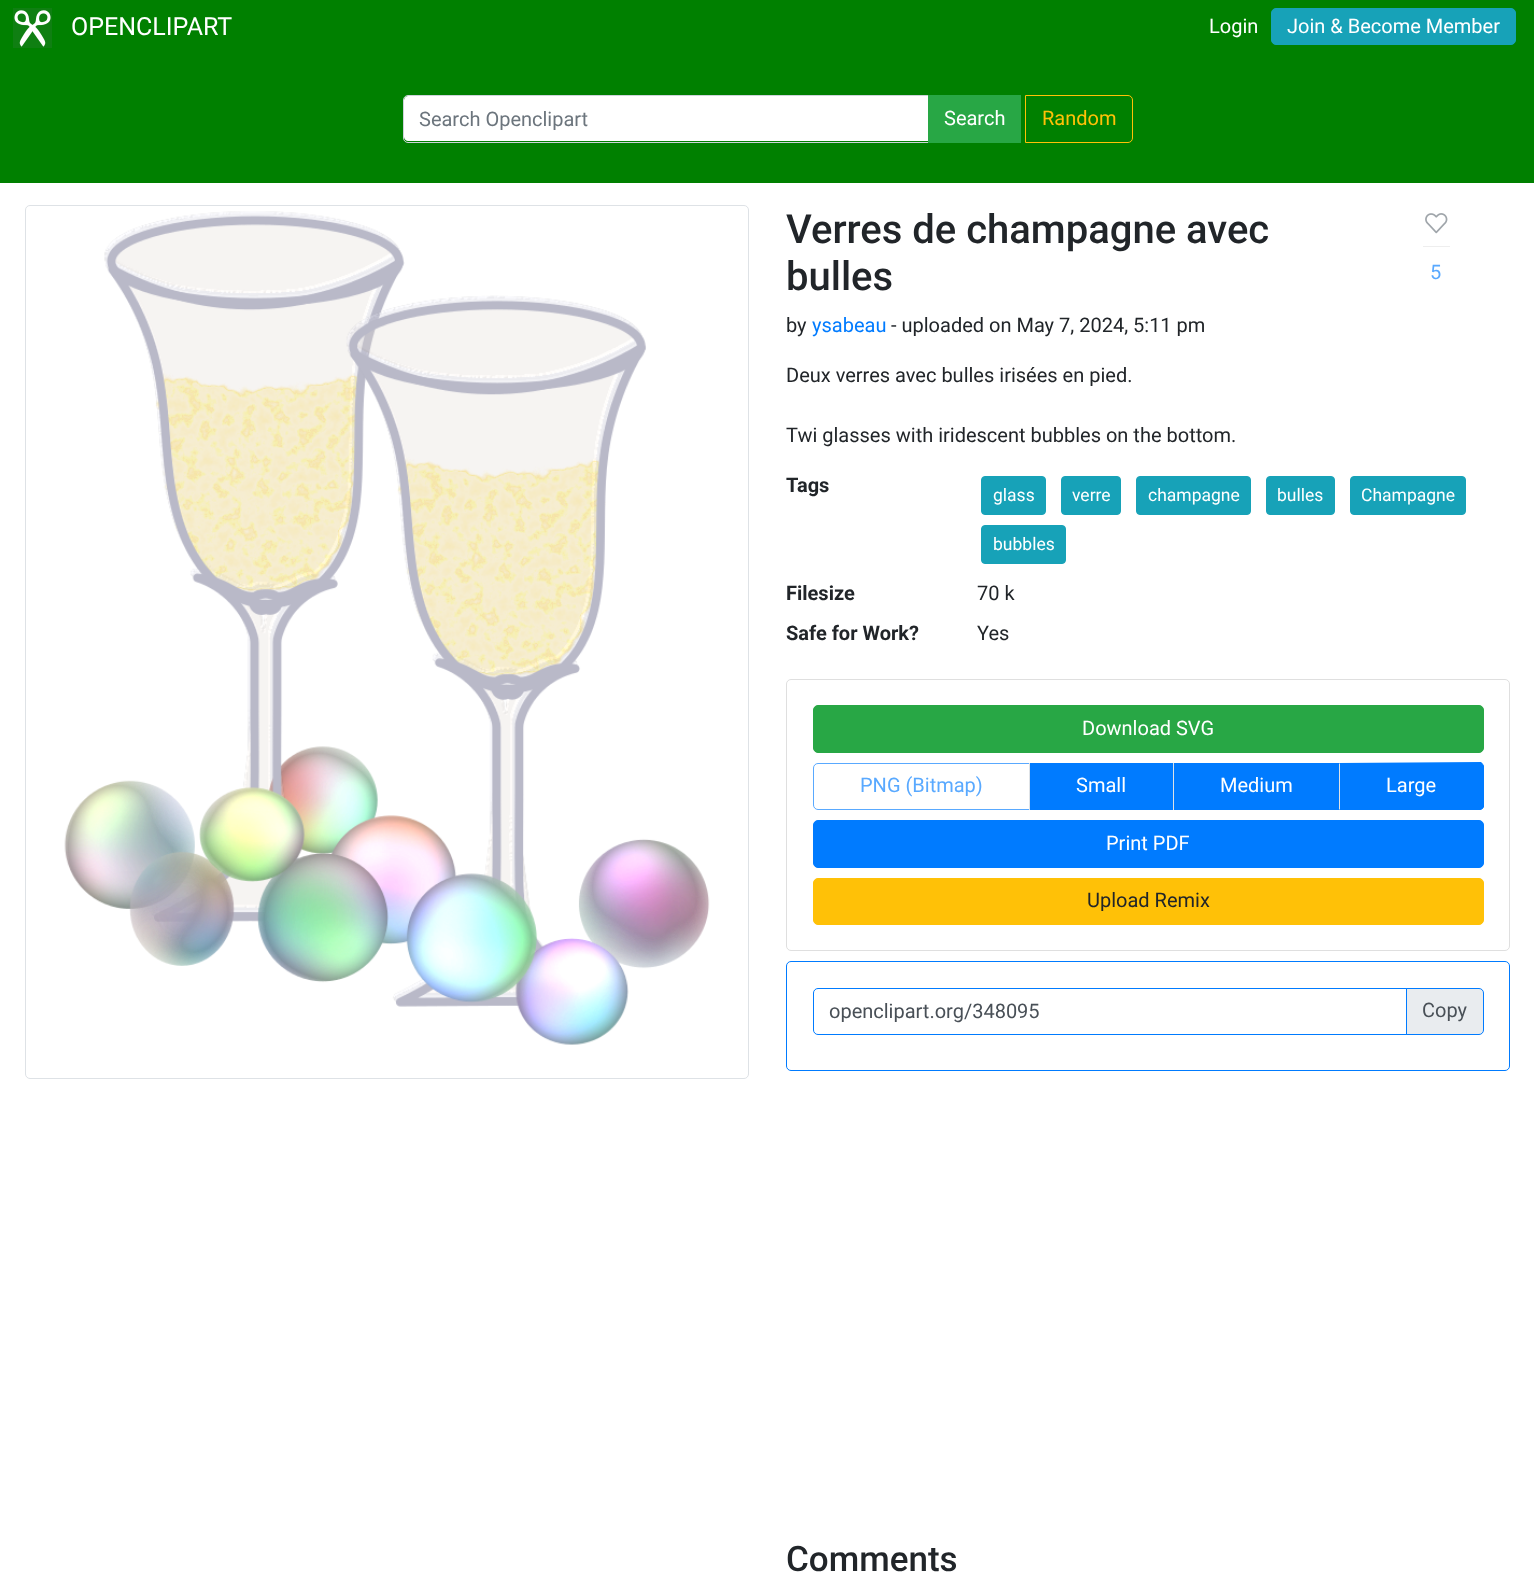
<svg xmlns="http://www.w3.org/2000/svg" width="1534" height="1585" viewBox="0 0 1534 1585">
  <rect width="100%" height="100%" fill="rgb(255,255,255)"/>
  <rect x="0" y="0" width="1534" height="183" fill="rgb(0,128,0)"/>
  <image x="13" y="8" width="39" height="40" href="pic1.png"/>
  <text x="71" y="35" font-family="Roboto" font-size="25" fill="rgb(255,255,255)">OPENCLIPART</text>
  <text x="1209" y="33" font-family="Roboto" font-size="20" fill="rgb(255,255,255)">Login</text>
  <rect x="1271.5" y="8.5" width="244" height="36" rx="4.5" fill="rgb(23,162,184)" stroke="rgb(23,162,184)"/>
  <text x="1287" y="33" font-family="Roboto" font-size="20" fill="rgb(255,255,255)">Join &amp; Become Member</text>
  <path d="M408 96H928V141H408C406 141 404 139 404 137V100C404 98 406 96 408 96Z" fill="rgb(255,255,255)"/>
  <path d="M408 95.5H928.5V142.5H408C405.5 142.5 403.5 140.5 403.5 138V100C403.5 97.5 405.5 95.5 408 95.5Z" fill="none" stroke="rgb(206,212,218)"/>
  <text x="419" y="126" font-family="Roboto" font-size="20" fill="rgb(108,117,125)">Search Openclipart</text>
  <rect x="928" y="95" width="93" height="48" fill="rgb(40,167,69)"/>
  <text x="944" y="125" font-family="Roboto" font-size="20" fill="rgb(255,255,255)">Search</text>
  <path d="M1025.5 95.5H1128C1130.5 95.5 1132.5 97.5 1132.5 100V138C1132.5 140.5 1130.5 142.5 1128 142.5H1025.5Z" fill="none" stroke="rgb(255,193,7)"/>
  <text x="1042" y="125" font-family="Roboto" font-size="20" fill="rgb(255,193,7)">Random</text>
  <rect x="25.5" y="205.5" width="723" height="873" rx="4.5" fill="none" stroke="rgb(222,226,230)"/>
  <image x="64" y="211" width="646" height="834" href="pic2.png"/>
  <g font-family="Roboto" font-size="40" font-weight="500" fill="rgb(33,37,41)">
    <text>
      <tspan x="786" y="243">Verres de champagne avec</tspan>
      <tspan x="786" y="290">bulles</tspan>
    </text>
  </g>
  <text x="786" y="332" font-family="Roboto" font-size="20" fill="rgb(33,37,41)">by</text>
  <text x="812" y="332" font-family="Roboto" font-size="20" fill="rgb(0,123,255)">ysabeau</text>
  <g font-family="Roboto" font-size="20" fill="rgb(33,37,41)">
    <text x="891" y="332">- uploaded on May 7, 2024, 5:11 pm</text>
    <text x="786" y="382">Deux verres avec bulles irisées en pied.</text>
    <text x="786" y="442">Twi glasses with iridescent bubbles on the bottom.</text>
  </g>
  <image x="1425" y="213" width="23" height="21" href="pic3.png"/>
  <rect x="1423" y="246" width="27" height="1" fill="rgb(238,238,238)"/>
  <text x="1430" y="279" font-family="Roboto" font-size="20" fill="rgb(89,169,255)">5</text>
  <text x="786" y="492" font-family="Roboto" font-size="20" font-weight="bold" fill="rgb(33,37,41)">Tags</text>
  <rect x="981.5" y="476.5" width="64" height="38" rx="3.5" fill="rgb(23,162,184)" stroke="rgb(23,162,184)"/>
  <text x="993" y="501" font-family="Roboto" font-size="17.5" fill="rgb(255,255,255)">glass</text>
  <rect x="1061.5" y="476.5" width="59" height="38" rx="3.5" fill="rgb(23,162,184)" stroke="rgb(23,162,184)"/>
  <text x="1072" y="501" font-family="Roboto" font-size="17.5" fill="rgb(255,255,255)">verre</text>
  <rect x="1136.5" y="476.5" width="114" height="38" rx="3.5" fill="rgb(23,162,184)" stroke="rgb(23,162,184)"/>
  <text x="1148" y="501" font-family="Roboto" font-size="17.5" fill="rgb(255,255,255)">champagne</text>
  <rect x="1266.5" y="476.5" width="68" height="38" rx="3.5" fill="rgb(23,162,184)" stroke="rgb(23,162,184)"/>
  <text x="1277" y="501" font-family="Roboto" font-size="17.5" fill="rgb(255,255,255)">bulles</text>
  <rect x="1350.5" y="476.5" width="115" height="38" rx="3.5" fill="rgb(23,162,184)" stroke="rgb(23,162,184)"/>
  <text x="1361" y="501" font-family="Roboto" font-size="17.5" fill="rgb(255,255,255)">Champagne</text>
  <rect x="981.5" y="525.5" width="84" height="38" rx="3.5" fill="rgb(23,162,184)" stroke="rgb(23,162,184)"/>
  <text x="993" y="550" font-family="Roboto" font-size="17.5" fill="rgb(255,255,255)">bubbles</text>
  <text x="786" y="600" font-family="Roboto" font-size="20" font-weight="bold" fill="rgb(33,37,41)">Filesize</text>
  <text x="977" y="600" font-family="Roboto" font-size="20" fill="rgb(33,37,41)">70 k</text>
  <text x="786" y="640" font-family="Roboto" font-size="20" font-weight="bold" fill="rgb(33,37,41)">Safe for Work?</text>
  <text x="977" y="640" font-family="Roboto" font-size="20" fill="rgb(33,37,41)">Yes</text>
  <rect x="786.5" y="679.5" width="723" height="271" rx="4.5" fill="none" stroke="rgb(223,223,223)"/>
  <rect x="813.5" y="705.5" width="670" height="47" rx="4.5" fill="rgb(40,167,69)" stroke="rgb(40,167,69)"/>
  <text x="1082" y="735" font-family="Roboto" font-size="20" fill="rgb(255,255,255)">Download SVG</text>
  <path d="M818 763.5H1029.5V809.5H818C815.5 809.5 813.5 807.5 813.5 805V768C813.5 765.5 815.5 763.5 818 763.5Z" fill="none" stroke="rgb(89,169,255)"/>
  <text x="860" y="792" font-family="Roboto" font-size="20" fill="rgb(89,169,255)">PNG (Bitmap)</text>
  <rect x="1030" y="763" width="143" height="47" fill="rgb(0,123,255)"/>
  <rect x="1029" y="763" width="1" height="47" fill="rgb(222,226,230)"/>
  <text x="1076" y="792" font-family="Roboto" font-size="20" fill="rgb(255,255,255)">Small</text>
  <rect x="1174" y="763" width="165" height="47" fill="rgb(0,123,255)"/>
  <rect x="1173" y="763" width="1" height="47" fill="rgb(222,226,230)"/>
  <text x="1220" y="792" font-family="Roboto" font-size="20" fill="rgb(255,255,255)">Medium</text>
  <path d="M1339 763H1479C1482 763 1484 765 1484 768V805C1484 808 1482 810 1479 810H1339Z" fill="rgb(0,123,255)"/>
  <path d="M1339 763L1481 762L1483 764L1481 765L1479 764H1340Z" fill="rgb(0,123,255)"/>
  <path d="M1484 807L1482 809L1481 808C1483 805 1483 767 1481 765L1483 764L1484 766Z" fill="rgb(0,123,255)"/>
  <path d="M1339 810H1480L1482 809L1481 808C1481 808 1480 809 1479 809H1340Z" fill="rgb(0,123,255)"/>
  <path d="M1340 764V809L1339 810V763Z" fill="rgb(222,226,230)"/>
  <text x="1386" y="792" font-family="Roboto" font-size="20" fill="rgb(255,255,255)">Large</text>
  <rect x="813.5" y="820.5" width="670" height="47" rx="4.5" fill="rgb(0,123,255)" stroke="rgb(0,123,255)"/>
  <text x="1106" y="850" font-family="Roboto" font-size="20" fill="rgb(255,255,255)">Print PDF</text>
  <rect x="813.5" y="878.5" width="670" height="46" rx="4.5" fill="rgb(255,193,7)" stroke="rgb(255,193,7)"/>
  <text x="1087" y="907" font-family="Roboto" font-size="20" fill="rgb(33,37,41)">Upload Remix</text>
  <rect x="786.5" y="961.5" width="723" height="109" rx="4.5" fill="none" stroke="rgb(0,123,255)"/>
  <path d="M818 988.5H1407.5V1034.5H818C815.5 1034.5 813.5 1032.5 813.5 1030V993C813.5 990.5 815.5 988.5 818 988.5Z" fill="none" stroke="rgb(0,123,255)"/>
  <text x="829" y="1018" font-family="Roboto" font-size="20" fill="rgb(73,80,87)">openclipart.org/348095</text>
  <path d="M1406.5 988.5H1479C1481.5 988.5 1483.5 990.5 1483.5 993V1030C1483.5 1032.5 1481.5 1034.5 1479 1034.5H1406.5Z" fill="rgb(233,236,239)" stroke="rgb(0,123,255)"/>
  <text x="1422" y="1017" font-family="Roboto" font-size="20" fill="rgb(73,80,87)">Copy</text>
  <text x="786" y="1571" font-family="Roboto" font-size="35" font-weight="500" fill="rgb(33,37,41)">Comments</text>
</svg>
